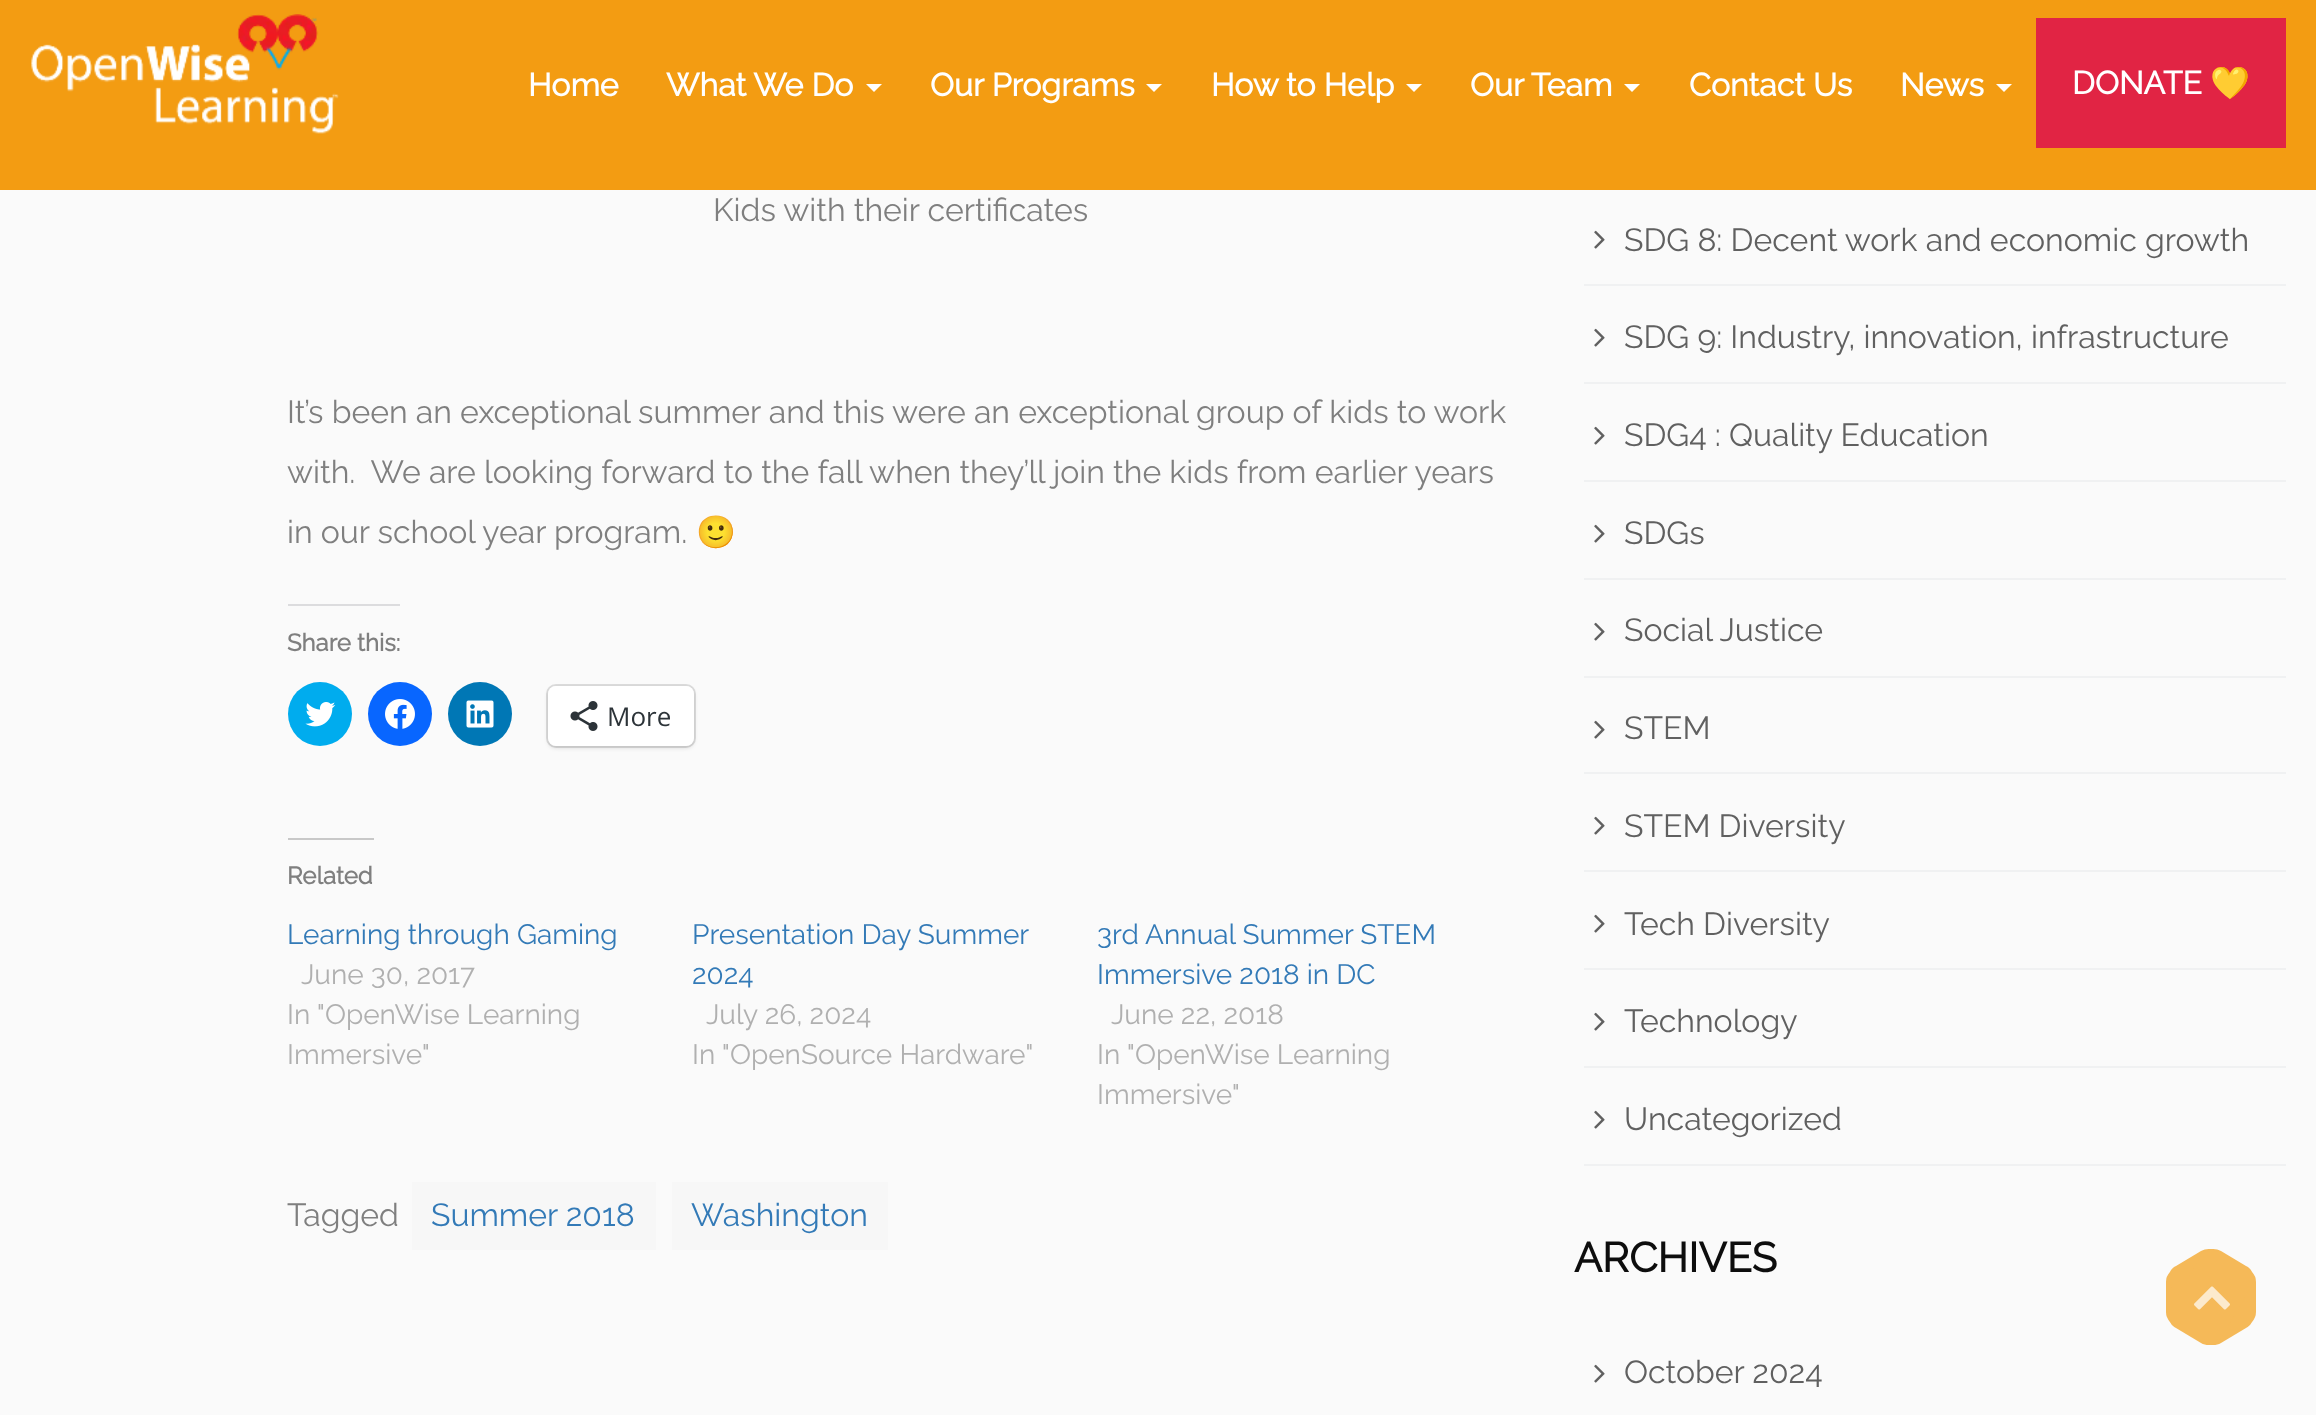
<svg xmlns="http://www.w3.org/2000/svg" width="2316" height="1415" viewBox="0 0 2316 1415">
  <rect width="100%" height="100%" fill="rgb(250,250,250)"/>
  <rect x="0" y="0" width="2316" height="190" fill="rgb(243,156,18)"/>
  <image x="31" y="14" width="308" height="120" href="pic1.png"/>
  <g font-family="Raleway" font-size="32" font-weight="bold" fill="rgb(255,255,255)">
    <text x="528" y="96">Home</text>
    <text x="666" y="96">What We Do</text>
  </g>
  <path d="M866 84H882L874 92Z" fill="rgb(255,255,255)"/>
  <text x="930" y="96" font-family="Raleway" font-size="32" font-weight="bold" fill="rgb(255,255,255)">Our Programs</text>
  <path d="M1146 84H1162L1154 92Z" fill="rgb(255,255,255)"/>
  <text x="1211" y="96" font-family="Raleway" font-size="32" font-weight="bold" fill="rgb(255,255,255)">How to Help</text>
  <path d="M1406 84H1422L1414 92Z" fill="rgb(255,255,255)"/>
  <text x="1470" y="96" font-family="Raleway" font-size="32" font-weight="bold" fill="rgb(255,255,255)">Our Team</text>
  <path d="M1624 84H1640L1632 92Z" fill="rgb(255,255,255)"/>
  <g font-family="Raleway" font-size="32" font-weight="bold" fill="rgb(255,255,255)">
    <text x="1689" y="96">Contact Us</text>
    <text x="1900" y="96">News</text>
  </g>
  <path d="M1996 84H2012L2004 92Z" fill="rgb(255,255,255)"/>
  <rect x="2036" y="18" width="250" height="130" fill="rgb(225,36,68)"/>
  <text x="2072" y="94" font-family="Raleway" font-size="32" font-weight="bold" fill="rgb(255,255,255)">DONATE</text>
  <text x="2210" y="94" font-family="Noto Color Emoji" font-size="32" font-weight="bold" fill="rgb(255,255,255)">💛</text>
  <g font-family="Raleway" font-size="32" font-weight="100" fill="rgb(127,127,127)">
    <text x="713" y="221">Kids with their certificates</text>
    <text xml:space="preserve"><tspan x="287" y="423">It’s been an exceptional summer and this were an exceptional group of kids to work</tspan><tspan x="287" y="483">with.  We are looking forward to the fall when they’ll join the kids from earlier years</tspan><tspan x="287" y="543">in our school year program.</tspan></text>
  </g>
  <text x="696" y="543" font-family="Noto Color Emoji" font-size="32" fill="rgb(127,127,127)">🙂</text>
  <rect x="288" y="604" width="112" height="2" fill="rgb(220,220,222)"/>
  <text x="287" y="651" font-family="Raleway" font-size="24" font-weight="bold" fill="rgb(127,127,127)">Share this:</text>
  <circle cx="320" cy="714" r="32" fill="rgb(0,172,238)"/>
  <image x="305" y="702" width="31" height="25" href="pic2.png"/>
  <circle cx="400" cy="714" r="32" fill="rgb(8,102,255)"/>
  <image x="385" y="699" width="30" height="30" href="pic3.png"/>
  <circle cx="480" cy="714" r="32" fill="rgb(0,119,181)"/>
  <image x="466" y="700" width="28" height="28" href="pic4.png"/>
  <rect x="547" y="685" width="148" height="62" rx="9" fill="none" stroke="rgb(220,220,220)" stroke-width="2"/>
  <rect x="548" y="688" width="146" height="60" rx="8" fill="rgba(0,0,0,0.12)" filter="blur(2px)"/>
  <rect x="548" y="686" width="146" height="60" rx="8" fill="rgb(255,255,255)"/>
  <image x="570" y="701" width="28" height="30" href="pic5.png"/>
  <text x="607" y="726" font-family="Open Sans" font-size="26" fill="rgb(44,51,56)">More</text>
  <rect x="288" y="838" width="86" height="2" fill="rgb(200,200,200)"/>
  <text x="287" y="884" font-family="Raleway" font-size="24" font-weight="bold" fill="rgb(127,127,127)">Related</text>
  <text x="287" y="944" font-family="Raleway" font-size="28" font-weight="100" fill="rgb(51,122,183)">Learning through Gaming</text>
  <g font-family="Raleway" font-size="28" font-weight="100" fill="rgb(176,176,176)">
    <text x="301" y="984">June 30, 2017</text>
    <text>
      <tspan x="287" y="1024">In "OpenWise Learning</tspan>
      <tspan x="287" y="1064">Immersive"</tspan>
    </text>
  </g>
  <g font-family="Raleway" font-size="28" font-weight="100" fill="rgb(51,122,183)">
    <text>
      <tspan x="692" y="944">Presentation Day Summer</tspan>
      <tspan x="692" y="984">2024</tspan>
    </text>
  </g>
  <g font-family="Raleway" font-size="28" font-weight="100" fill="rgb(176,176,176)">
    <text x="706" y="1024">July 26, 2024</text>
    <text x="692" y="1064">In "OpenSource Hardware"</text>
  </g>
  <g font-family="Raleway" font-size="28" font-weight="100" fill="rgb(51,122,183)">
    <text>
      <tspan x="1097" y="944">3rd Annual Summer STEM</tspan>
      <tspan x="1097" y="984">Immersive 2018 in DC</tspan>
    </text>
  </g>
  <g font-family="Raleway" font-size="28" font-weight="100" fill="rgb(176,176,176)">
    <text x="1111" y="1024">June 22, 2018</text>
    <text>
      <tspan x="1097" y="1064">In "OpenWise Learning</tspan>
      <tspan x="1097" y="1104">Immersive"</tspan>
    </text>
  </g>
  <text x="287" y="1226" font-family="Raleway" font-size="32" font-weight="100" fill="rgb(127,127,127)">Tagged</text>
  <rect x="412" y="1182" width="244" height="68" fill="rgb(247,247,247)"/>
  <text x="431" y="1226" font-family="Raleway" font-size="32" font-weight="100" fill="rgb(51,122,183)">Summer 2018</text>
  <rect x="672" y="1182" width="216" height="68" fill="rgb(247,247,247)"/>
  <text x="691" y="1226" font-family="Raleway" font-size="32" font-weight="100" fill="rgb(51,122,183)">Washington</text>
  <rect x="1584" y="284" width="702" height="2" fill="rgb(240,241,242)"/>
  <image x="1594" y="230" width="11" height="19" href="pic6.png"/>
  <text x="1624" y="251" font-family="Raleway" font-size="32" font-weight="100" fill="rgb(96,96,96)">SDG 8: Decent work and economic growth</text>
  <rect x="1584" y="382" width="702" height="2" fill="rgb(240,241,242)"/>
  <image x="1594" y="328" width="11" height="19" href="pic6.png"/>
  <text x="1624" y="348" font-family="Raleway" font-size="32" font-weight="100" fill="rgb(96,96,96)">SDG 9: Industry, innovation, infrastructure</text>
  <rect x="1584" y="480" width="702" height="2" fill="rgb(240,241,242)"/>
  <image x="1594" y="426" width="11" height="19" href="pic6.png"/>
  <text x="1624" y="446" font-family="Raleway" font-size="32" font-weight="100" fill="rgb(96,96,96)">SDG4 : Quality Education</text>
  <rect x="1584" y="578" width="702" height="2" fill="rgb(240,241,242)"/>
  <image x="1594" y="524" width="11" height="19" href="pic6.png"/>
  <text x="1624" y="544" font-family="Raleway" font-size="32" font-weight="100" fill="rgb(96,96,96)">SDGs</text>
  <rect x="1584" y="676" width="702" height="2" fill="rgb(240,241,242)"/>
  <image x="1594" y="622" width="11" height="19" href="pic6.png"/>
  <text x="1624" y="641" font-family="Raleway" font-size="32" font-weight="100" fill="rgb(96,96,96)">Social Justice</text>
  <rect x="1584" y="772" width="702" height="2" fill="rgb(240,241,242)"/>
  <image x="1594" y="720" width="11" height="19" href="pic6.png"/>
  <text x="1624" y="739" font-family="Raleway" font-size="32" font-weight="100" fill="rgb(96,96,96)">STEM</text>
  <rect x="1584" y="870" width="702" height="2" fill="rgb(240,241,242)"/>
  <image x="1594" y="816" width="11" height="19" href="pic6.png"/>
  <text x="1624" y="837" font-family="Raleway" font-size="32" font-weight="100" fill="rgb(96,96,96)">STEM Diversity</text>
  <rect x="1584" y="968" width="702" height="2" fill="rgb(240,241,242)"/>
  <image x="1594" y="914" width="11" height="19" href="pic6.png"/>
  <text x="1624" y="935" font-family="Raleway" font-size="32" font-weight="100" fill="rgb(96,96,96)">Tech Diversity</text>
  <rect x="1584" y="1066" width="702" height="2" fill="rgb(240,241,242)"/>
  <image x="1594" y="1012" width="11" height="19" href="pic6.png"/>
  <text x="1624" y="1032" font-family="Raleway" font-size="32" font-weight="100" fill="rgb(96,96,96)">Technology</text>
  <rect x="1584" y="1164" width="702" height="2" fill="rgb(240,241,242)"/>
  <image x="1594" y="1110" width="11" height="19" href="pic6.png"/>
  <text x="1624" y="1130" font-family="Raleway" font-size="32" font-weight="100" fill="rgb(96,96,96)">Uncategorized</text>
  <text x="1574" y="1272" font-family="Raleway" font-size="41.5" font-weight="bold" fill="rgb(13,13,13)">ARCHIVES</text>
  <image x="1594" y="1364" width="11" height="19" href="pic6.png"/>
  <text x="1624" y="1383" font-family="Raleway" font-size="32" font-weight="100" fill="rgb(96,96,96)">October 2024</text>
  <rect x="2166" y="1268" width="90" height="58" rx="14" fill="rgb(245,185,88)"/>
  <path d="M2221 1256L2252 1309C2255 1316 2253 1325 2246 1328L2221 1343C2214 1347 2205 1345 2201 1338L2170 1285C2167 1278 2169 1269 2176 1266L2201 1251C2208 1247 2217 1249 2221 1256Z" fill="rgb(245,185,88)"/>
  <path d="M2170 1309L2201 1256C2205 1249 2214 1247 2221 1251L2246 1266C2253 1269 2255 1278 2252 1285L2221 1338C2217 1345 2208 1347 2201 1343L2176 1328C2169 1325 2167 1316 2170 1309Z" fill="rgb(245,185,88)"/>
  <image x="2194" y="1286" width="36" height="24" href="pic7.png"/>
</svg>
